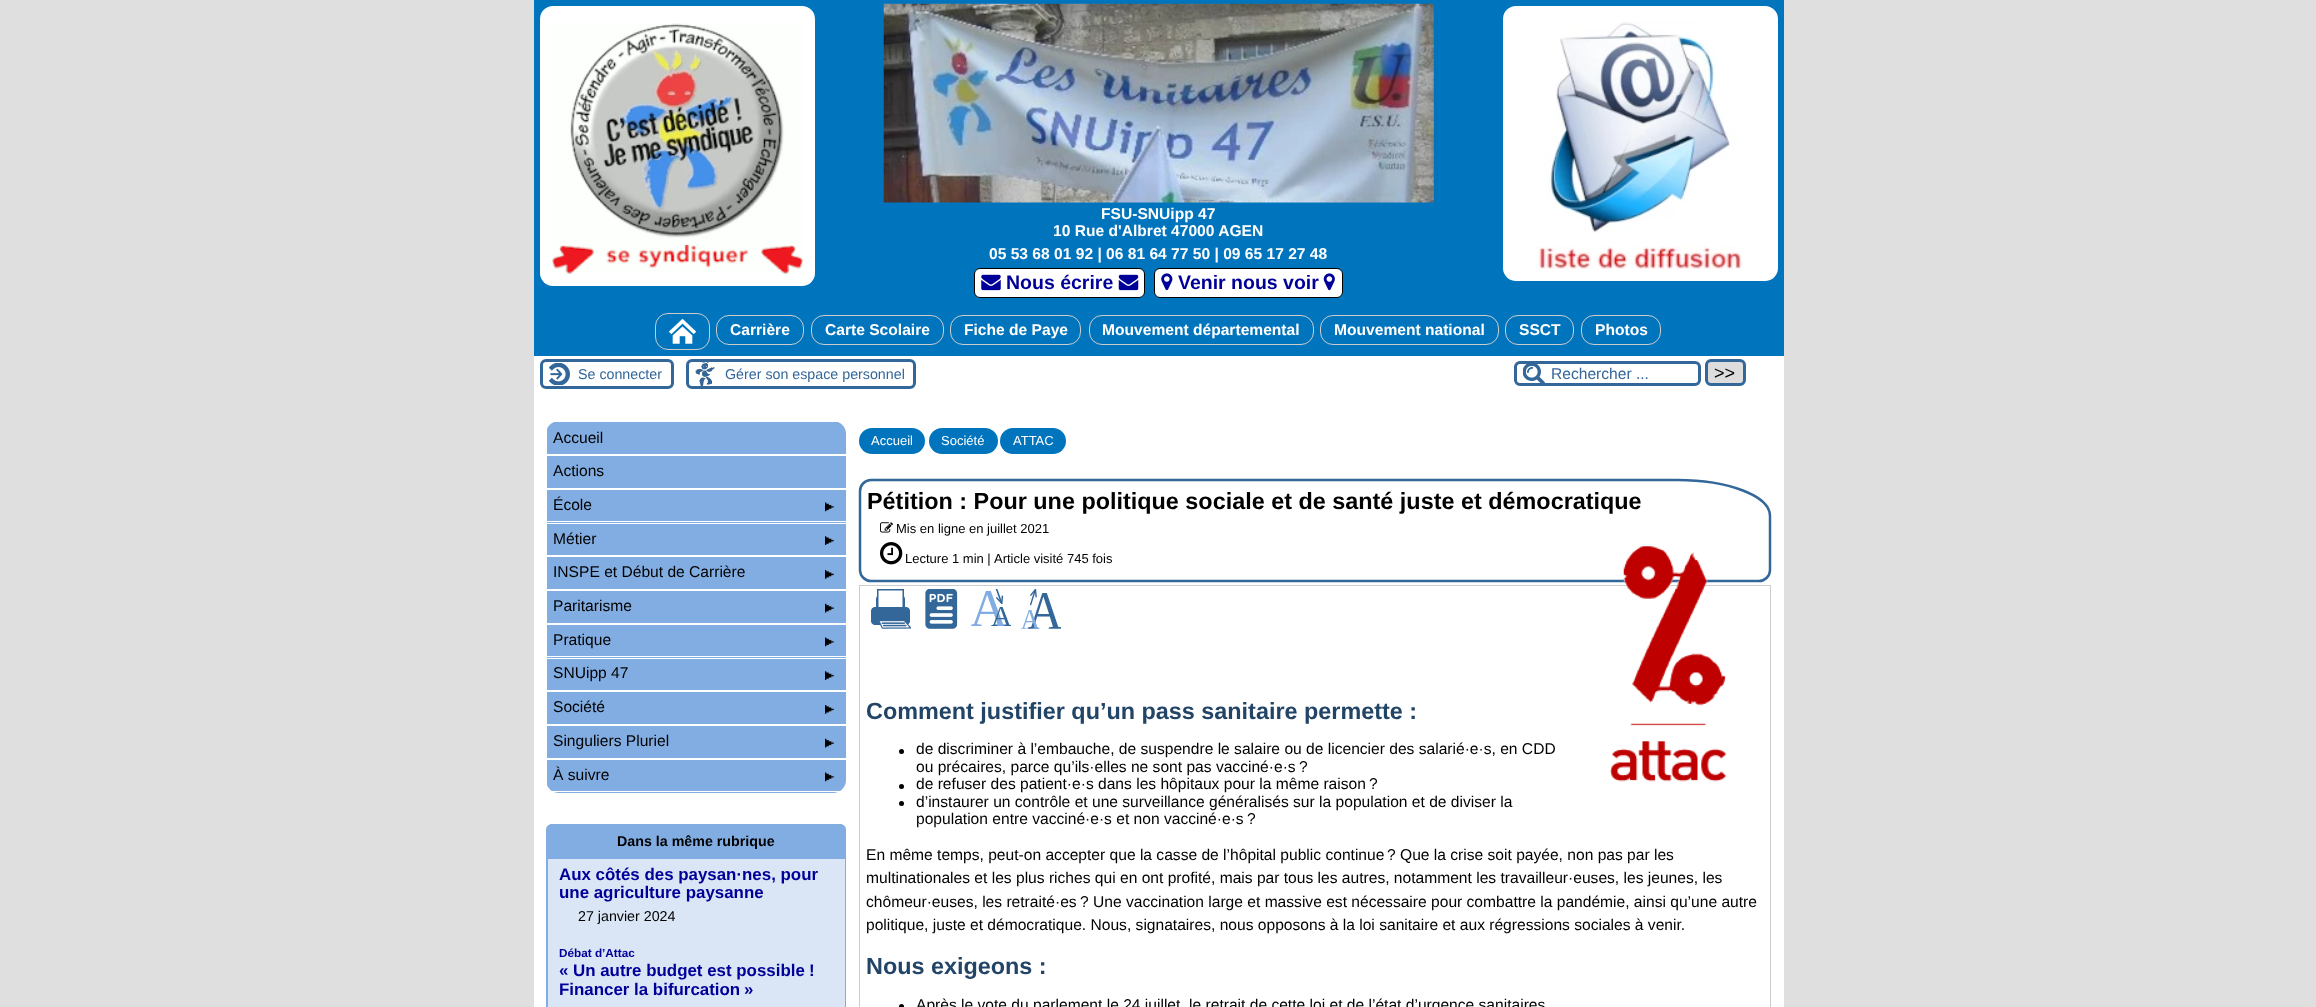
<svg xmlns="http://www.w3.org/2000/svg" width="2316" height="1007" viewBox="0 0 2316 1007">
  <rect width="100%" height="100%" fill="rgb(223,223,223)"/>
  <rect x="534" y="356" width="1250" height="651" fill="rgb(255,255,255)"/>
  <rect x="534" y="0" width="1250" height="356" fill="rgb(0,117,190)"/>
  <rect x="540" y="6" width="275" height="280" rx="13" fill="rgb(255,255,255)"/>
  <image x="552" y="23" width="251" height="251" href="pic1.png"/>
  <image x="883" y="3" width="551" height="200" href="pic2.png"/>
  <g font-family="Liberation Sans" font-size="15.6" font-weight="bold" fill="rgb(255,255,255)">
    <text x="1101" y="219">FSU-SNUipp 47</text>
    <text x="1053" y="236">10 Rue d'Albret 47000 AGEN</text>
    <text x="989" y="259">05 53 68 01 92 | 06 81 64 77 50 | 09 65 17 27 48</text>
  </g>
  <rect x="974.5" y="268.5" width="170" height="29" rx="5.5" fill="rgb(255,255,255)" stroke="rgb(0,0,0)"/>
  <image x="981" y="274" width="20" height="17" href="pic3.png"/>
  <text x="1006" y="289" font-family="Liberation Sans" font-size="19.5" font-weight="bold" fill="rgb(0,0,153)">Nous écrire</text>
  <image x="1118" y="274" width="21" height="17" href="pic4.png"/>
  <rect x="1154.5" y="268.5" width="188" height="29" rx="5.5" fill="rgb(255,255,255)" stroke="rgb(0,0,0)"/>
  <image x="1161" y="273" width="12" height="18" href="pic5.png"/>
  <text x="1178" y="289" font-family="Liberation Sans" font-size="19.5" font-weight="bold" fill="rgb(0,0,153)">Venir nous voir</text>
  <image x="1323" y="273" width="12" height="18" href="pic6.png"/>
  <rect x="1503" y="6" width="275" height="275" rx="13" fill="rgb(255,255,255)"/>
  <image x="1535" y="21" width="209" height="248" href="pic7.png"/>
  <rect x="655.5" y="313.5" width="54" height="36" rx="12.5" fill="none" stroke="rgb(204,204,204)"/>
  <image x="669" y="319" width="27" height="25" href="pic8.png"/>
  <rect x="716.5" y="315.5" width="87" height="29" rx="12.5" fill="none" stroke="rgb(204,204,204)"/>
  <text x="730" y="335" font-family="Liberation Sans" font-size="15.6" font-weight="bold" fill="rgb(255,255,255)">Carrière</text>
  <rect x="811.5" y="315.5" width="132" height="29" rx="12.5" fill="none" stroke="rgb(204,204,204)"/>
  <text x="825" y="335" font-family="Liberation Sans" font-size="15.6" font-weight="bold" fill="rgb(255,255,255)">Carte Scolaire</text>
  <rect x="950.5" y="315.5" width="130" height="29" rx="12.5" fill="none" stroke="rgb(204,204,204)"/>
  <text x="964" y="335" font-family="Liberation Sans" font-size="15.6" font-weight="bold" fill="rgb(255,255,255)">Fiche de Paye</text>
  <rect x="1089.5" y="315.5" width="224" height="29" rx="12.5" fill="none" stroke="rgb(204,204,204)"/>
  <text x="1102" y="335" font-family="Liberation Sans" font-size="15.6" font-weight="bold" fill="rgb(255,255,255)">Mouvement départemental</text>
  <rect x="1320.5" y="315.5" width="178" height="29" rx="12.5" fill="none" stroke="rgb(204,204,204)"/>
  <text x="1334" y="335" font-family="Liberation Sans" font-size="15.6" font-weight="bold" fill="rgb(255,255,255)">Mouvement national</text>
  <rect x="1505.5" y="315.5" width="68" height="29" rx="12.5" fill="none" stroke="rgb(204,204,204)"/>
  <text x="1519" y="335" font-family="Liberation Sans" font-size="15.6" font-weight="bold" fill="rgb(255,255,255)">SSCT</text>
  <rect x="1581.5" y="315.5" width="79" height="29" rx="12.5" fill="none" stroke="rgb(204,204,204)"/>
  <text x="1595" y="335" font-family="Liberation Sans" font-size="15.6" font-weight="bold" fill="rgb(255,255,255)">Photos</text>
  <image x="549" y="363" width="21" height="22" href="pic9.png"/>
  <rect x="541.5" y="360.5" width="131" height="27" rx="4.5" fill="none" stroke="rgb(51,102,153)" stroke-width="3"/>
  <text x="578" y="379" font-family="Liberation Sans" font-size="14.25" fill="rgb(51,102,153)">Se connecter</text>
  <image x="695" y="362" width="20" height="24" href="pic10.png"/>
  <rect x="687.5" y="360.5" width="227" height="27" rx="4.5" fill="none" stroke="rgb(51,102,153)" stroke-width="3"/>
  <text x="725" y="379" font-family="Liberation Sans" font-size="14.25" fill="rgb(51,102,153)">Gérer son espace personnel</text>
  <image x="1523" y="364" width="22" height="19" href="pic11.png"/>
  <rect x="1515.5" y="362.5" width="184" height="22" rx="4.5" fill="none" stroke="rgb(51,102,153)" stroke-width="3"/>
  <text x="1551" y="379" font-family="Liberation Sans" font-size="15.6" fill="rgb(51,102,153)">Rechercher ...</text>
  <rect x="1706.5" y="360.5" width="38" height="24" rx="4.5" fill="rgb(221,221,221)" stroke="rgb(51,102,153)" stroke-width="3"/>
  <text x="1714" y="379" font-family="Liberation Sans" font-size="18" fill="rgb(0,0,0)">&gt;&gt;</text>
  <rect x="546" y="421" width="300" height="372" rx="13" fill="rgb(130,173,226)"/>
  <rect x="546" y="421" width="300" height="1" fill="rgb(255,255,255)"/>
  <rect x="546" y="454" width="300" height="2" fill="rgb(255,255,255)"/>
  <rect x="546" y="421" width="1" height="34" fill="rgb(255,255,255)"/>
  <path d="M561 423H833C840 423 846 429 846 436V454H548V436C548 429 554 423 561 423Z" fill="rgb(130,173,226)"/>
  <text x="553" y="443" font-family="Liberation Sans" font-size="15.6" fill="rgb(0,0,0)">Accueil</text>
  <rect x="546" y="488" width="300" height="2" fill="rgb(255,255,255)"/>
  <rect x="546" y="455" width="1" height="34" fill="rgb(255,255,255)"/>
  <text x="553" y="476" font-family="Liberation Sans" font-size="15.6" fill="rgb(0,0,0)">Actions</text>
  <rect x="546" y="521" width="300" height="1" fill="rgb(255,255,255)"/>
  <rect x="546" y="489" width="1" height="34" fill="rgb(255,255,255)"/>
  <text x="553" y="510" font-family="Liberation Sans" font-size="15.6" fill="rgb(0,0,0)">École</text>
  <image x="825" y="502" width="9" height="10" href="pic12.png"/>
  <rect x="546" y="523" width="300" height="1" fill="rgb(255,255,255)"/>
  <rect x="546" y="555" width="300" height="2" fill="rgb(255,255,255)"/>
  <rect x="546" y="523" width="1" height="33" fill="rgb(255,255,255)"/>
  <text x="553" y="544" font-family="Liberation Sans" font-size="15.6" fill="rgb(0,0,0)">Métier</text>
  <image x="825" y="536" width="9" height="9" href="pic13.png"/>
  <rect x="546" y="589" width="300" height="2" fill="rgb(255,255,255)"/>
  <rect x="546" y="556" width="1" height="34" fill="rgb(255,255,255)"/>
  <text x="553" y="577" font-family="Liberation Sans" font-size="15.6" fill="rgb(0,0,0)">INSPE et Début de Carrière</text>
  <image x="825" y="570" width="9" height="9" href="pic14.png"/>
  <rect x="546" y="623" width="300" height="2" fill="rgb(255,255,255)"/>
  <rect x="546" y="590" width="1" height="34" fill="rgb(255,255,255)"/>
  <text x="553" y="611" font-family="Liberation Sans" font-size="15.6" fill="rgb(0,0,0)">Paritarisme</text>
  <image x="825" y="603" width="9" height="10" href="pic15.png"/>
  <rect x="546" y="656" width="300" height="1" fill="rgb(255,255,255)"/>
  <rect x="546" y="624" width="1" height="34" fill="rgb(255,255,255)"/>
  <text x="553" y="645" font-family="Liberation Sans" font-size="15.6" fill="rgb(0,0,0)">Pratique</text>
  <image x="825" y="637" width="9" height="10" href="pic12.png"/>
  <rect x="546" y="658" width="300" height="1" fill="rgb(255,255,255)"/>
  <rect x="546" y="690" width="300" height="2" fill="rgb(255,255,255)"/>
  <rect x="546" y="658" width="1" height="33" fill="rgb(255,255,255)"/>
  <text x="553" y="678" font-family="Liberation Sans" font-size="15.6" fill="rgb(0,0,0)">SNUipp 47</text>
  <image x="825" y="671" width="9" height="9" href="pic13.png"/>
  <rect x="546" y="724" width="300" height="2" fill="rgb(255,255,255)"/>
  <rect x="546" y="691" width="1" height="34" fill="rgb(255,255,255)"/>
  <text x="553" y="712" font-family="Liberation Sans" font-size="15.6" fill="rgb(0,0,0)">Société</text>
  <image x="825" y="705" width="9" height="9" href="pic14.png"/>
  <rect x="546" y="758" width="300" height="2" fill="rgb(255,255,255)"/>
  <rect x="546" y="725" width="1" height="34" fill="rgb(255,255,255)"/>
  <text x="553" y="746" font-family="Liberation Sans" font-size="15.6" fill="rgb(0,0,0)">Singuliers Pluriel</text>
  <image x="825" y="738" width="9" height="10" href="pic15.png"/>
  <rect x="546" y="791" width="300" height="1" fill="rgb(255,255,255)"/>
  <rect x="546" y="759" width="1" height="34" fill="rgb(255,255,255)"/>
  <path d="M548 760H846V778C846 785 840 791 833 791H561C554 791 548 785 548 778Z" fill="rgb(130,173,226)"/>
  <text x="553" y="780" font-family="Liberation Sans" font-size="15.6" fill="rgb(0,0,0)">À suivre</text>
  <image x="825" y="772" width="9" height="10" href="pic12.png"/>
  <path d="M552 824H840C843.5 824 846 826.5 846 830V859H546V830C546 826.5 548.5 824 552 824Z" fill="rgb(130,173,226)"/>
  <text x="617" y="846" font-family="Liberation Sans" font-size="14.25" font-weight="bold" fill="rgb(0,0,0)">Dans la même rubrique</text>
  <path d="M548 859H845V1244H559C553 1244 548 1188 548 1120Z" fill="rgb(218,230,246)"/>
  <path d="M546 859H846V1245H559C552 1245 546 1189 546 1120ZM548 859H845V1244H559C553 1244 548 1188 548 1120Z" fill="rgb(130,173,226)" fill-rule="evenodd"/>
  <g font-family="Liberation Sans" font-size="16.9" font-weight="bold" fill="rgb(0,0,153)">
    <text>
      <tspan x="559" y="880">Aux côtés des paysan·nes, pour</tspan>
      <tspan x="559" y="898">une agriculture paysanne</tspan>
    </text>
  </g>
  <text x="578" y="921" font-family="Liberation Sans" font-size="14.25" fill="rgb(0,0,0)">27 janvier 2024</text>
  <text x="559" y="957" font-family="Liberation Sans" font-size="11.75" font-weight="bold" fill="rgb(0,0,153)">Débat d’Attac</text>
  <g font-family="Liberation Sans" font-size="16.9" font-weight="bold" fill="rgb(0,0,153)">
    <text x="559" y="976">«</text>
    <text x="573" y="976">Un autre budget est possible</text>
    <text x="809" y="976">!</text>
    <text x="559" y="995">Financer la bifurcation</text>
    <text x="744" y="995">»</text>
  </g>
  <rect x="859" y="428" width="66" height="26" rx="13" fill="rgb(0,117,190)"/>
  <text x="871" y="445" font-family="Liberation Sans" font-size="13" fill="rgb(255,255,255)">Accueil</text>
  <rect x="929" y="428" width="69" height="26" rx="13" fill="rgb(0,117,190)"/>
  <text x="941" y="445" font-family="Liberation Sans" font-size="13" fill="rgb(255,255,255)">Société</text>
  <rect x="1000" y="428" width="66" height="26" rx="13" fill="rgb(0,117,190)"/>
  <text x="1013" y="445" font-family="Liberation Sans" font-size="13" fill="rgb(255,255,255)">ATTAC</text>
  <path d="M871 480H1677.5C1728.5 480 1770 496 1770 516V570C1770 576 1765 581 1759 581H871C865 581 860 576 860 570V491C860 485 865 480 871 480Z" fill="none" stroke="rgb(51,102,153)" stroke-width="2.5"/>
  <text x="867" y="509" font-family="Liberation Sans" font-size="23.4" font-weight="bold" fill="rgb(0,0,0)">Pétition : Pour une politique sociale et de santé juste et démocratique</text>
  <image x="880" y="522" width="13" height="11" href="pic16.png"/>
  <text x="896" y="533" font-family="Liberation Sans" font-size="13" fill="rgb(0,0,0)">Mis en ligne en juillet 2021</text>
  <image x="880" y="542" width="23" height="23" href="pic17.png"/>
  <g font-family="Liberation Sans" font-size="13" fill="rgb(0,0,0)">
    <text x="905" y="563">Lecture 1 min |</text>
    <text x="994" y="563">Article visité 745 fois</text>
  </g>
  <rect x="859.5" y="585.5" width="911" height="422" fill="none" stroke="rgb(204,204,204)"/>
  <image x="1610" y="546" width="117" height="236" href="pic18.png"/>
  <image x="871" y="589" width="40" height="40" href="pic19.png"/>
  <image x="925" y="589" width="33" height="40" href="pic20.png"/>
  <image x="971" y="589" width="40" height="37" href="pic21.png"/>
  <image x="1021" y="589" width="40" height="40" href="pic22.png"/>
  <text x="866" y="719" font-family="Liberation Sans" font-size="23.4" font-weight="bold" fill="rgb(34,68,102)">Comment justifier qu’un pass sanitaire permette :</text>
  <circle cx="901.5" cy="751.5" r="2.5" fill="rgb(0,0,0)"/>
  <g font-family="Liberation Sans" font-size="15.6" fill="rgb(0,0,0)">
    <text>
      <tspan x="916" y="754">de discriminer à l’embauche, de suspendre le salaire ou de licencier des salarié·e·s, en CDD</tspan>
      <tspan x="916" y="772">ou précaires, parce qu’ils·elles ne sont pas vacciné·e·s</tspan>
    </text>
    <text x="1299" y="772">?</text>
  </g>
  <circle cx="901.5" cy="786.5" r="2.5" fill="rgb(0,0,0)"/>
  <g font-family="Liberation Sans" font-size="15.6" fill="rgb(0,0,0)">
    <text x="916" y="789">de refuser des patient·e·s dans les hôpitaux pour la même raison</text>
    <text x="1369" y="789">?</text>
  </g>
  <circle cx="901.5" cy="803.5" r="2.5" fill="rgb(0,0,0)"/>
  <g font-family="Liberation Sans" font-size="15.6" fill="rgb(0,0,0)">
    <text>
      <tspan x="916" y="807">d’instaurer un contrôle et une surveillance généralisés sur la population et de diviser la</tspan>
      <tspan x="916" y="824">population entre vacciné·e·s et non vacciné·e·s</tspan>
    </text>
    <text x="1247" y="824">?</text>
    <text x="866" y="860">En même temps, peut-on accepter que la casse de l’hôpital public continue</text>
    <text x="1387" y="860">? Que la crise soit payée, non pas par les</text>
    <text>
      <tspan x="866" y="883">multinationales et les plus riches qui en ont profité, mais par tous les autres, notamment les travailleur·euses, les jeunes, les</tspan>
      <tspan x="866" y="907">chômeur·euses, les retraité·es</tspan>
    </text>
    <text x="1080" y="907">? Une vaccination large et massive est nécessaire pour combattre la pandémie, ainsi qu’une autre</text>
    <text x="866" y="930">politique, juste et démocratique. Nous, signataires, nous opposons à la loi sanitaire et aux régressions sociales à venir.</text>
  </g>
  <text x="866" y="974" font-family="Liberation Sans" font-size="23.4" font-weight="bold" fill="rgb(34,68,102)">Nous exigeons :</text>
  <circle cx="901.5" cy="1006.5" r="2.5" fill="rgb(0,0,0)"/>
  <text x="916" y="1010" font-family="Liberation Sans" font-size="15.6" fill="rgb(0,0,0)">Après le vote du parlement le 24 juillet, le retrait de cette loi et de l’état d’urgence sanitaires</text>
</svg>
